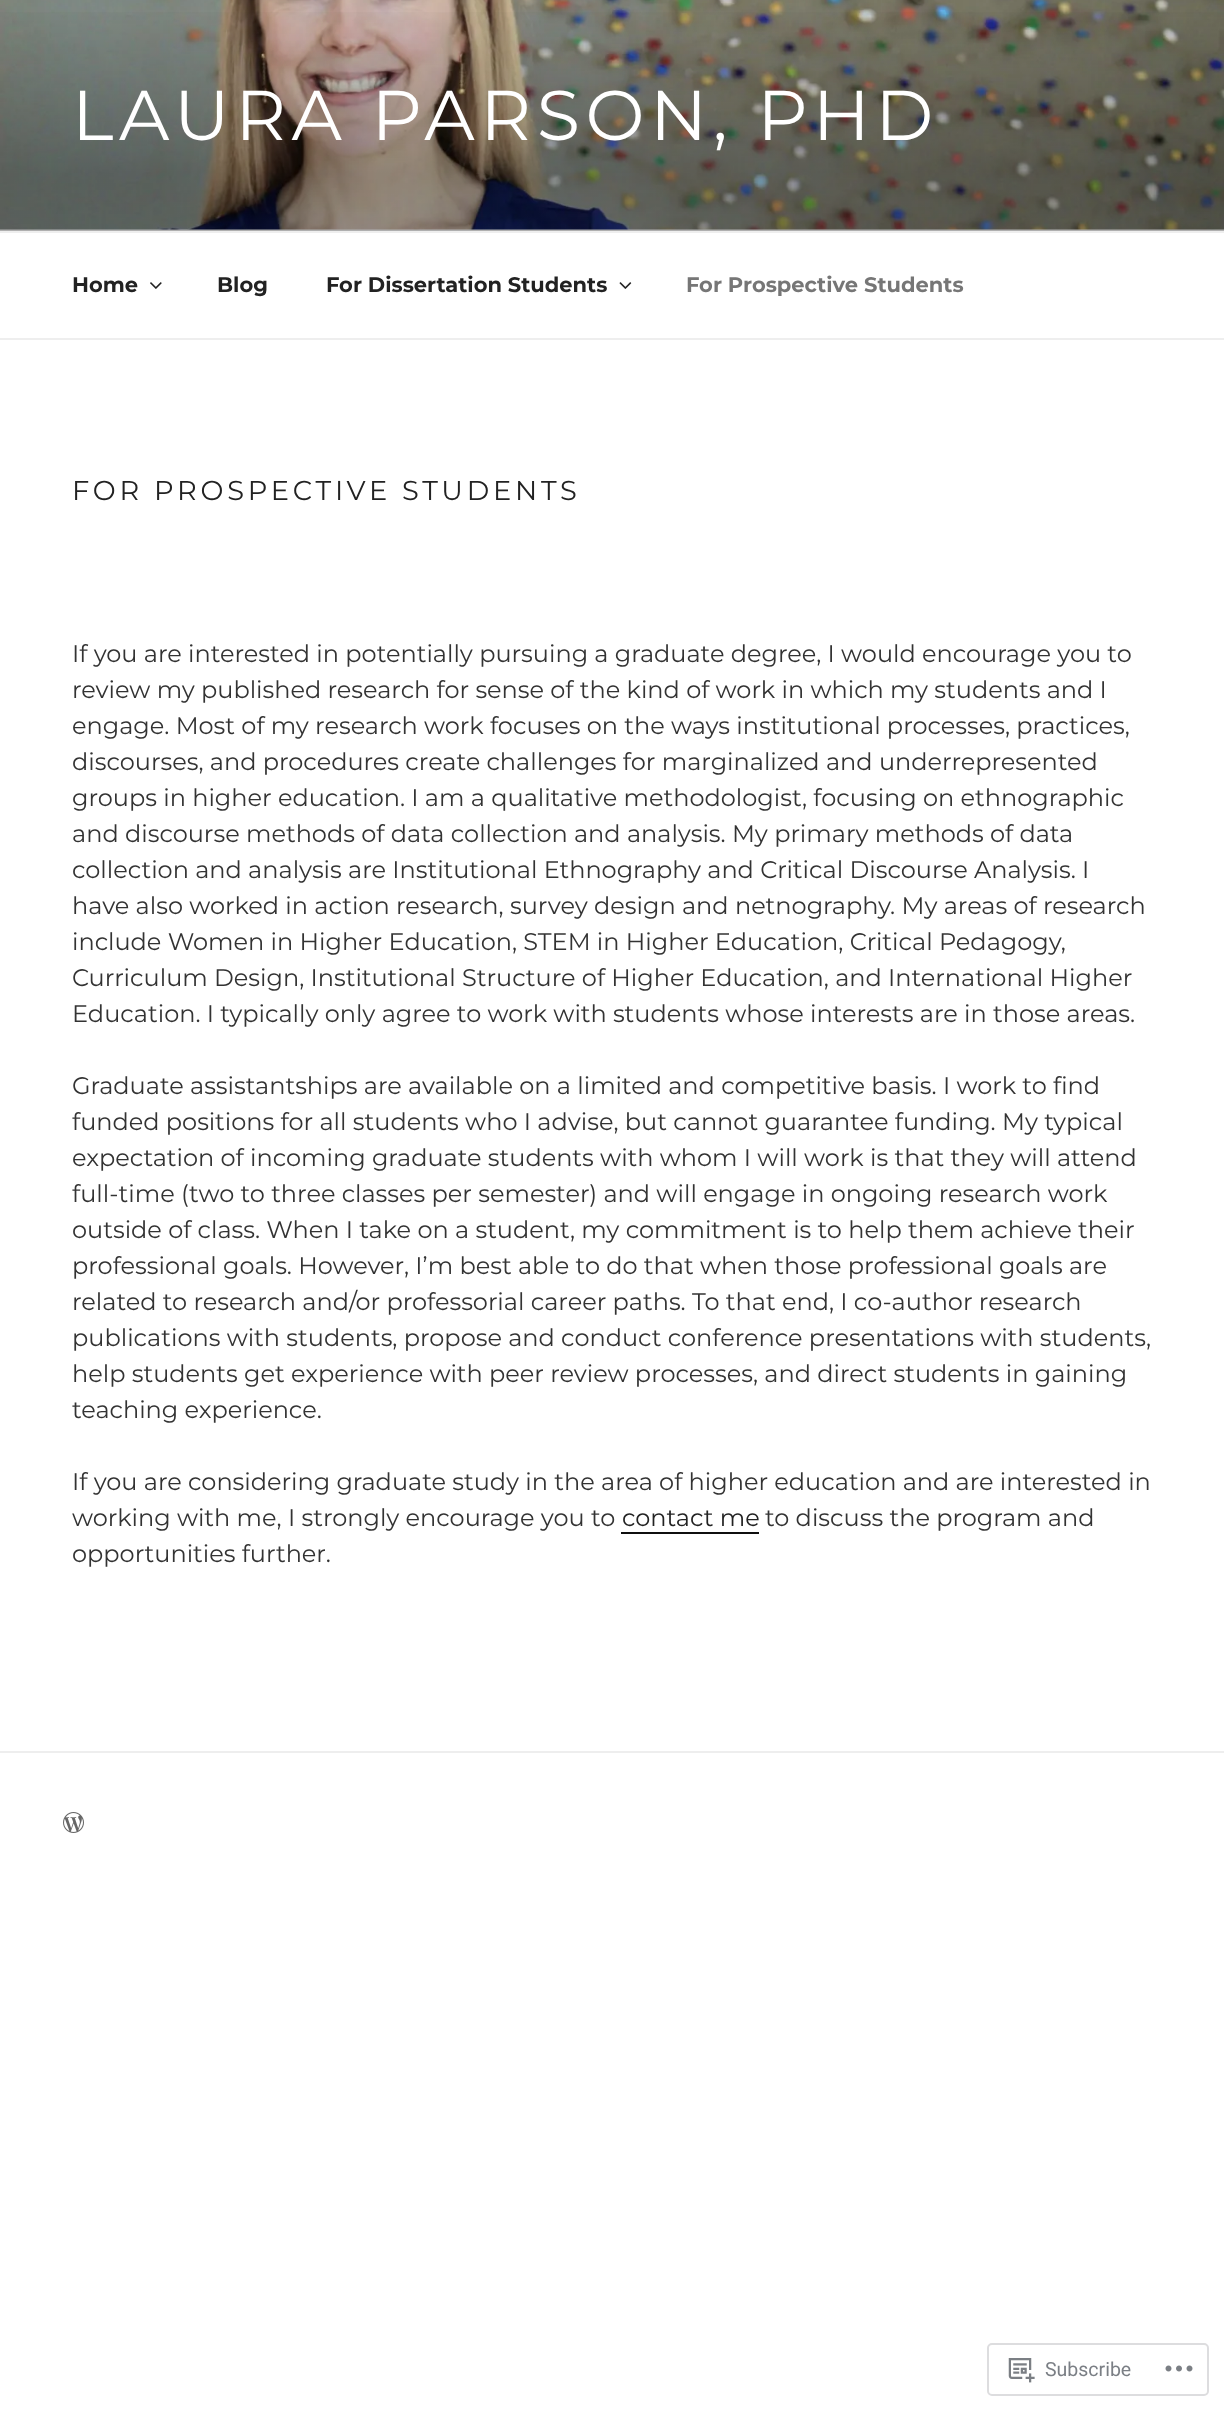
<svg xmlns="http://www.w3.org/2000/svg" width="1224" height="2410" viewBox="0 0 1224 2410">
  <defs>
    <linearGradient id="g1" gradientUnits="userSpaceOnUse" x1="612" y1="0" x2="612" y2="231"><stop offset="0" stop-color="rgb(0,0,0)" stop-opacity="0"/><stop offset="0.75" stop-color="rgb(0,0,0)" stop-opacity="0.3"/><stop offset="1" stop-color="rgb(0,0,0)" stop-opacity="0.3"/></linearGradient>
  </defs>
  <rect width="100%" height="100%" fill="rgb(255,255,255)"/>
  <rect x="0" y="229" width="1224" height="2" fill="rgb(250,250,250)"/>
  <image x="0" y="0" width="1224" height="230" href="pic1.png"/>
  <rect x="0" y="12" width="1224" height="219" fill="url(#g1)"/>
  <text x="72" y="140" font-family="Montserrat" font-size="70.25" letter-spacing="5.6" fill="rgb(255,255,255)">LAURA PARSON, PHD</text>
  <rect x="0" y="231" width="1224" height="2" fill="rgb(238,238,238)"/>
  <rect x="0" y="338" width="1224" height="2" fill="rgb(238,238,238)"/>
  <text x="72" y="292" font-family="Montserrat" font-size="21" font-weight="bold" fill="rgb(34,34,34)">Home</text>
  <image x="150" y="282" width="12" height="7" href="pic2.png"/>
  <g font-family="Montserrat" font-size="21" font-weight="bold" fill="rgb(34,34,34)">
    <text x="217" y="292">Blog</text>
    <text x="326" y="292">For Dissertation Students</text>
  </g>
  <image x="619" y="282" width="13" height="7" href="pic3.png"/>
  <text x="686" y="292" font-family="Montserrat" font-size="21" font-weight="bold" fill="rgb(118,118,118)">For Prospective Students</text>
  <text x="72" y="500" font-family="Montserrat" font-size="27.25" letter-spacing="3.8" fill="rgb(34,34,34)">FOR PROSPECTIVE STUDENTS</text>
  <g font-family="Montserrat" font-size="24" fill="rgb(51,51,51)">
    <text>
      <tspan x="72" y="662">If you are interested in potentially pursuing a graduate degree, I would encourage you to</tspan>
      <tspan x="72" y="698">review my published research for sense of the kind of work in which my students and I</tspan>
      <tspan x="72" y="734">engage. Most of my research work focuses on the ways institutional processes, practices,</tspan>
      <tspan x="72" y="770">discourses, and procedures create challenges for marginalized and underrepresented</tspan>
      <tspan x="72" y="806">groups in higher education. I am a qualitative methodologist, focusing on ethnographic</tspan>
      <tspan x="72" y="842">and discourse methods of data collection and analysis. My primary methods of data</tspan>
      <tspan x="72" y="878">collection and analysis are Institutional Ethnography and Critical Discourse Analysis. I</tspan>
      <tspan x="72" y="914">have also worked in action research, survey design and netnography. My areas of research</tspan>
      <tspan x="72" y="950">include Women in Higher Education, STEM in Higher Education, Critical Pedagogy,</tspan>
      <tspan x="72" y="986">Curriculum Design, Institutional Structure of Higher Education, and International Higher</tspan>
      <tspan x="72" y="1022">Education. I typically only agree to work with students whose interests are in those areas.</tspan>
    </text>
    <text>
      <tspan x="72" y="1094">Graduate assistantships are available on a limited and competitive basis. I work to find</tspan>
      <tspan x="72" y="1130">funded positions for all students who I advise, but cannot guarantee funding. My typical</tspan>
      <tspan x="72" y="1166">expectation of incoming graduate students with whom I will work is that they will attend</tspan>
      <tspan x="72" y="1202">full-time (two to three classes per semester) and will engage in ongoing research work</tspan>
      <tspan x="72" y="1238">outside of class. When I take on a student, my commitment is to help them achieve their</tspan>
      <tspan x="72" y="1274">professional goals. However, I’m best able to do that when those professional goals are</tspan>
      <tspan x="72" y="1310">related to research and/or professorial career paths. To that end, I co-author research</tspan>
      <tspan x="72" y="1346">publications with students, propose and conduct conference presentations with students,</tspan>
      <tspan x="72" y="1382">help students get experience with peer review processes, and direct students in gaining</tspan>
      <tspan x="72" y="1418">teaching experience.</tspan>
    </text>
    <text>
      <tspan x="72" y="1490">If you are considering graduate study in the area of higher education and are interested in</tspan>
      <tspan x="72" y="1526">working with me, I strongly encourage you to</tspan>
    </text>
  </g>
  <text x="622" y="1526" font-family="Montserrat" font-size="24" fill="rgb(34,34,34)">contact me</text>
  <rect x="621" y="1532" width="138" height="2" fill="rgb(15,15,15)"/>
  <g font-family="Montserrat" font-size="24" fill="rgb(51,51,51)">
    <text x="765" y="1526">to discuss the program and</text>
    <text x="72" y="1562">opportunities further.</text>
  </g>
  <rect x="0" y="1751" width="1224" height="2" fill="rgb(238,238,238)"/>
  <image x="63" y="1812" width="21" height="21" href="pic4.png"/>
  <rect x="988" y="2344" width="220" height="51" rx="4" fill="none" stroke="rgb(221,221,223)" stroke-width="2"/>
  <image x="1008" y="2358" width="27" height="25" href="pic5.png"/>
  <text x="1045" y="2376" font-family="Roboto" font-size="19.5" fill="rgb(123,127,133)">Subscribe</text>
  <image x="1165" y="2365" width="28" height="7" href="pic6.png"/>
</svg>
